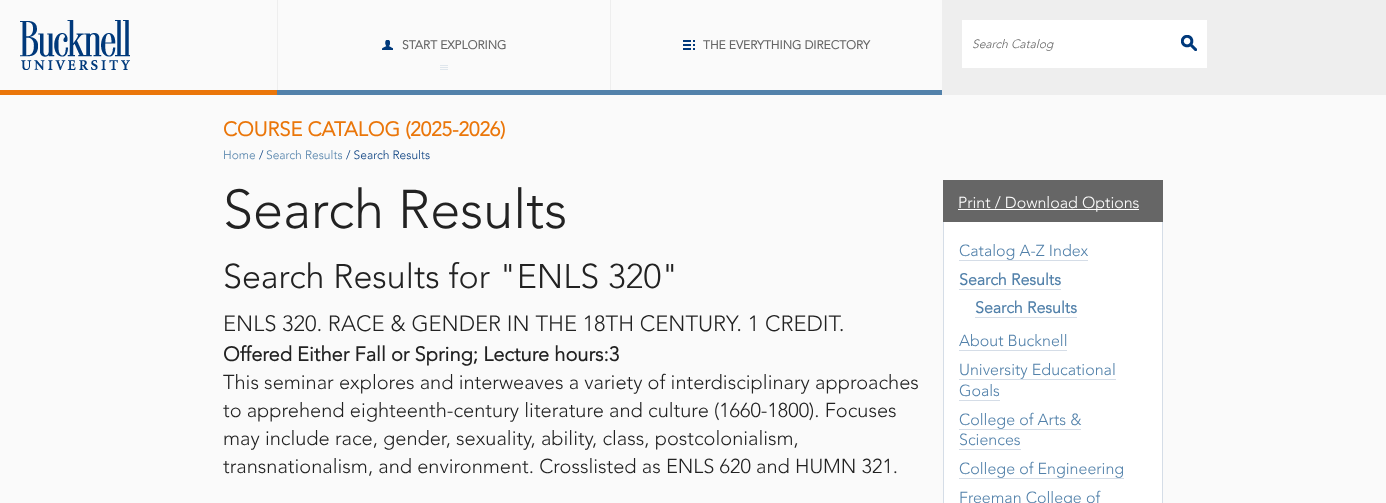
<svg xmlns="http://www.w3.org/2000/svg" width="1386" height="503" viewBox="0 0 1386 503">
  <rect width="100%" height="100%" fill="rgb(250,250,250)"/>
  <rect x="942" y="0" width="444" height="95" fill="rgb(238,238,238)"/>
  <rect x="0" y="90" width="277" height="5" fill="rgb(234,118,10)"/>
  <image x="20" y="20" width="110" height="50" href="pic1.png"/>
  <rect x="277" y="90" width="665" height="5" fill="rgb(82,129,170)"/>
  <image x="440" y="65" width="8" height="5" href="pic2.png"/>
  <rect x="277" y="0" width="1" height="90" fill="rgb(238,238,238)"/>
  <image x="382" y="40" width="11" height="10" href="pic3.png"/>
  <text x="402" y="49" font-family="avenir" font-size="12" font-weight="bold" fill="rgb(102,102,102)">START EXPLORING</text>
  <rect x="610" y="0" width="1" height="90" fill="rgb(238,238,238)"/>
  <image x="683" y="40" width="12" height="10" href="pic4.png"/>
  <text x="703" y="49" font-family="avenir" font-size="12" font-weight="bold" fill="rgb(102,102,102)">THE EVERYTHING DIRECTORY</text>
  <rect x="962" y="20" width="245" height="48" fill="rgb(255,255,255)"/>
  <text x="972" y="48" font-family="avenir" font-size="12" font-weight="300" font-style="italic" fill="rgb(102,102,102)">Search Catalog</text>
  <image x="1181" y="35" width="16" height="16" href="pic5.png"/>
  <text x="223" y="136" font-family="avenir" font-size="20" font-weight="bold" fill="rgb(234,118,10)">COURSE CATALOG (2025-2026)</text>
  <text x="223" y="159" font-family="avenir" font-size="12" font-weight="300" fill="rgb(82,129,170)">Home</text>
  <text x="259" y="159" font-family="avenir" font-size="12" font-weight="300" fill="rgb(0,57,124)">/</text>
  <text x="266" y="159" font-family="avenir" font-size="12" font-weight="300" fill="rgb(82,129,170)">Search Results</text>
  <text x="346" y="159" font-family="avenir" font-size="12" font-weight="300" fill="rgb(0,57,124)">/ Search Results</text>
  <text x="223" y="228" font-family="avenir" font-size="54" font-weight="300" fill="rgb(34,34,34)">Search Results</text>
  <text x="223" y="288" font-family="avenir" font-size="34" font-weight="300" fill="rgb(34,34,34)">Search Results for "ENLS 320"</text>
  <text x="223" y="331" font-family="avenir" font-size="22" font-weight="300" fill="rgb(34,34,34)">ENLS 320. RACE &amp; GENDER IN THE 18TH CENTURY. 1 CREDIT.</text>
  <text x="223" y="361" font-family="avenir" font-size="20" font-weight="bold" fill="rgb(34,34,34)">Offered Either Fall or Spring; Lecture hours:3</text>
  <g font-family="avenir" font-size="20" font-weight="300" fill="rgb(34,34,34)">
    <text>
      <tspan x="223" y="389">This seminar explores and interweaves a variety of interdisciplinary approaches</tspan>
      <tspan x="223" y="417">to apprehend eighteenth-century literature and culture (1660-1800). Focuses</tspan>
      <tspan x="223" y="445">may include race, gender, sexuality, ability, class, postcolonialism,</tspan>
      <tspan x="223" y="473">transnationalism, and environment. Crosslisted as ENLS 620 and HUMN 321.</tspan>
    </text>
  </g>
  <rect x="944" y="222" width="218" height="281" fill="rgb(255,255,255)"/>
  <rect x="943" y="180" width="220" height="42" fill="rgb(102,102,102)"/>
  <rect x="958" y="209" width="181" height="1" fill="rgb(255,255,255)"/>
  <text x="958" y="208" font-family="avenir" font-size="16" font-weight="300" fill="rgb(255,255,255)">Print / Download Options</text>
  <rect x="1162" y="222" width="1" height="281" fill="rgb(213,221,231)"/>
  <rect x="943" y="222" width="1" height="281" fill="rgb(213,221,231)"/>
  <text x="959" y="256" font-family="avenir" font-size="16" font-weight="300" fill="rgb(82,129,170)">Catalog A-Z Index</text>
  <rect x="959" y="260" width="129" height="1" fill="rgb(213,221,231)"/>
  <text x="959" y="285" font-family="avenir" font-size="16" font-weight="bold" fill="rgb(82,129,170)">Search Results</text>
  <rect x="959" y="289" width="102" height="1" fill="rgb(213,221,231)"/>
  <text x="975" y="313" font-family="avenir" font-size="16" font-weight="bold" fill="rgb(82,129,170)">Search Results</text>
  <rect x="975" y="317" width="102" height="1" fill="rgb(213,221,231)"/>
  <text x="959" y="346" font-family="avenir" font-size="16" font-weight="300" fill="rgb(82,129,170)">About Bucknell</text>
  <rect x="959" y="350" width="108" height="1" fill="rgb(213,221,231)"/>
  <text x="959" y="375" font-family="avenir" font-size="16" font-weight="300" fill="rgb(82,129,170)">University Educational</text>
  <rect x="959" y="379" width="157" height="1" fill="rgb(213,221,231)"/>
  <text x="959" y="396" font-family="avenir" font-size="16" font-weight="300" fill="rgb(82,129,170)">Goals</text>
  <rect x="959" y="400" width="41" height="1" fill="rgb(213,221,231)"/>
  <text x="959" y="425" font-family="avenir" font-size="16" font-weight="300" fill="rgb(82,129,170)">College of Arts &amp;</text>
  <rect x="959" y="429" width="122" height="1" fill="rgb(213,221,231)"/>
  <text x="959" y="445" font-family="avenir" font-size="16" font-weight="300" fill="rgb(82,129,170)">Sciences</text>
  <rect x="959" y="449" width="62" height="1" fill="rgb(213,221,231)"/>
  <text x="959" y="474" font-family="avenir" font-size="16" font-weight="300" fill="rgb(82,129,170)">College of Engineering</text>
  <rect x="959" y="478" width="165" height="1" fill="rgb(213,221,231)"/>
  <text x="959" y="503" font-family="avenir" font-size="16" font-weight="300" fill="rgb(82,129,170)">Freeman College of</text>
</svg>
